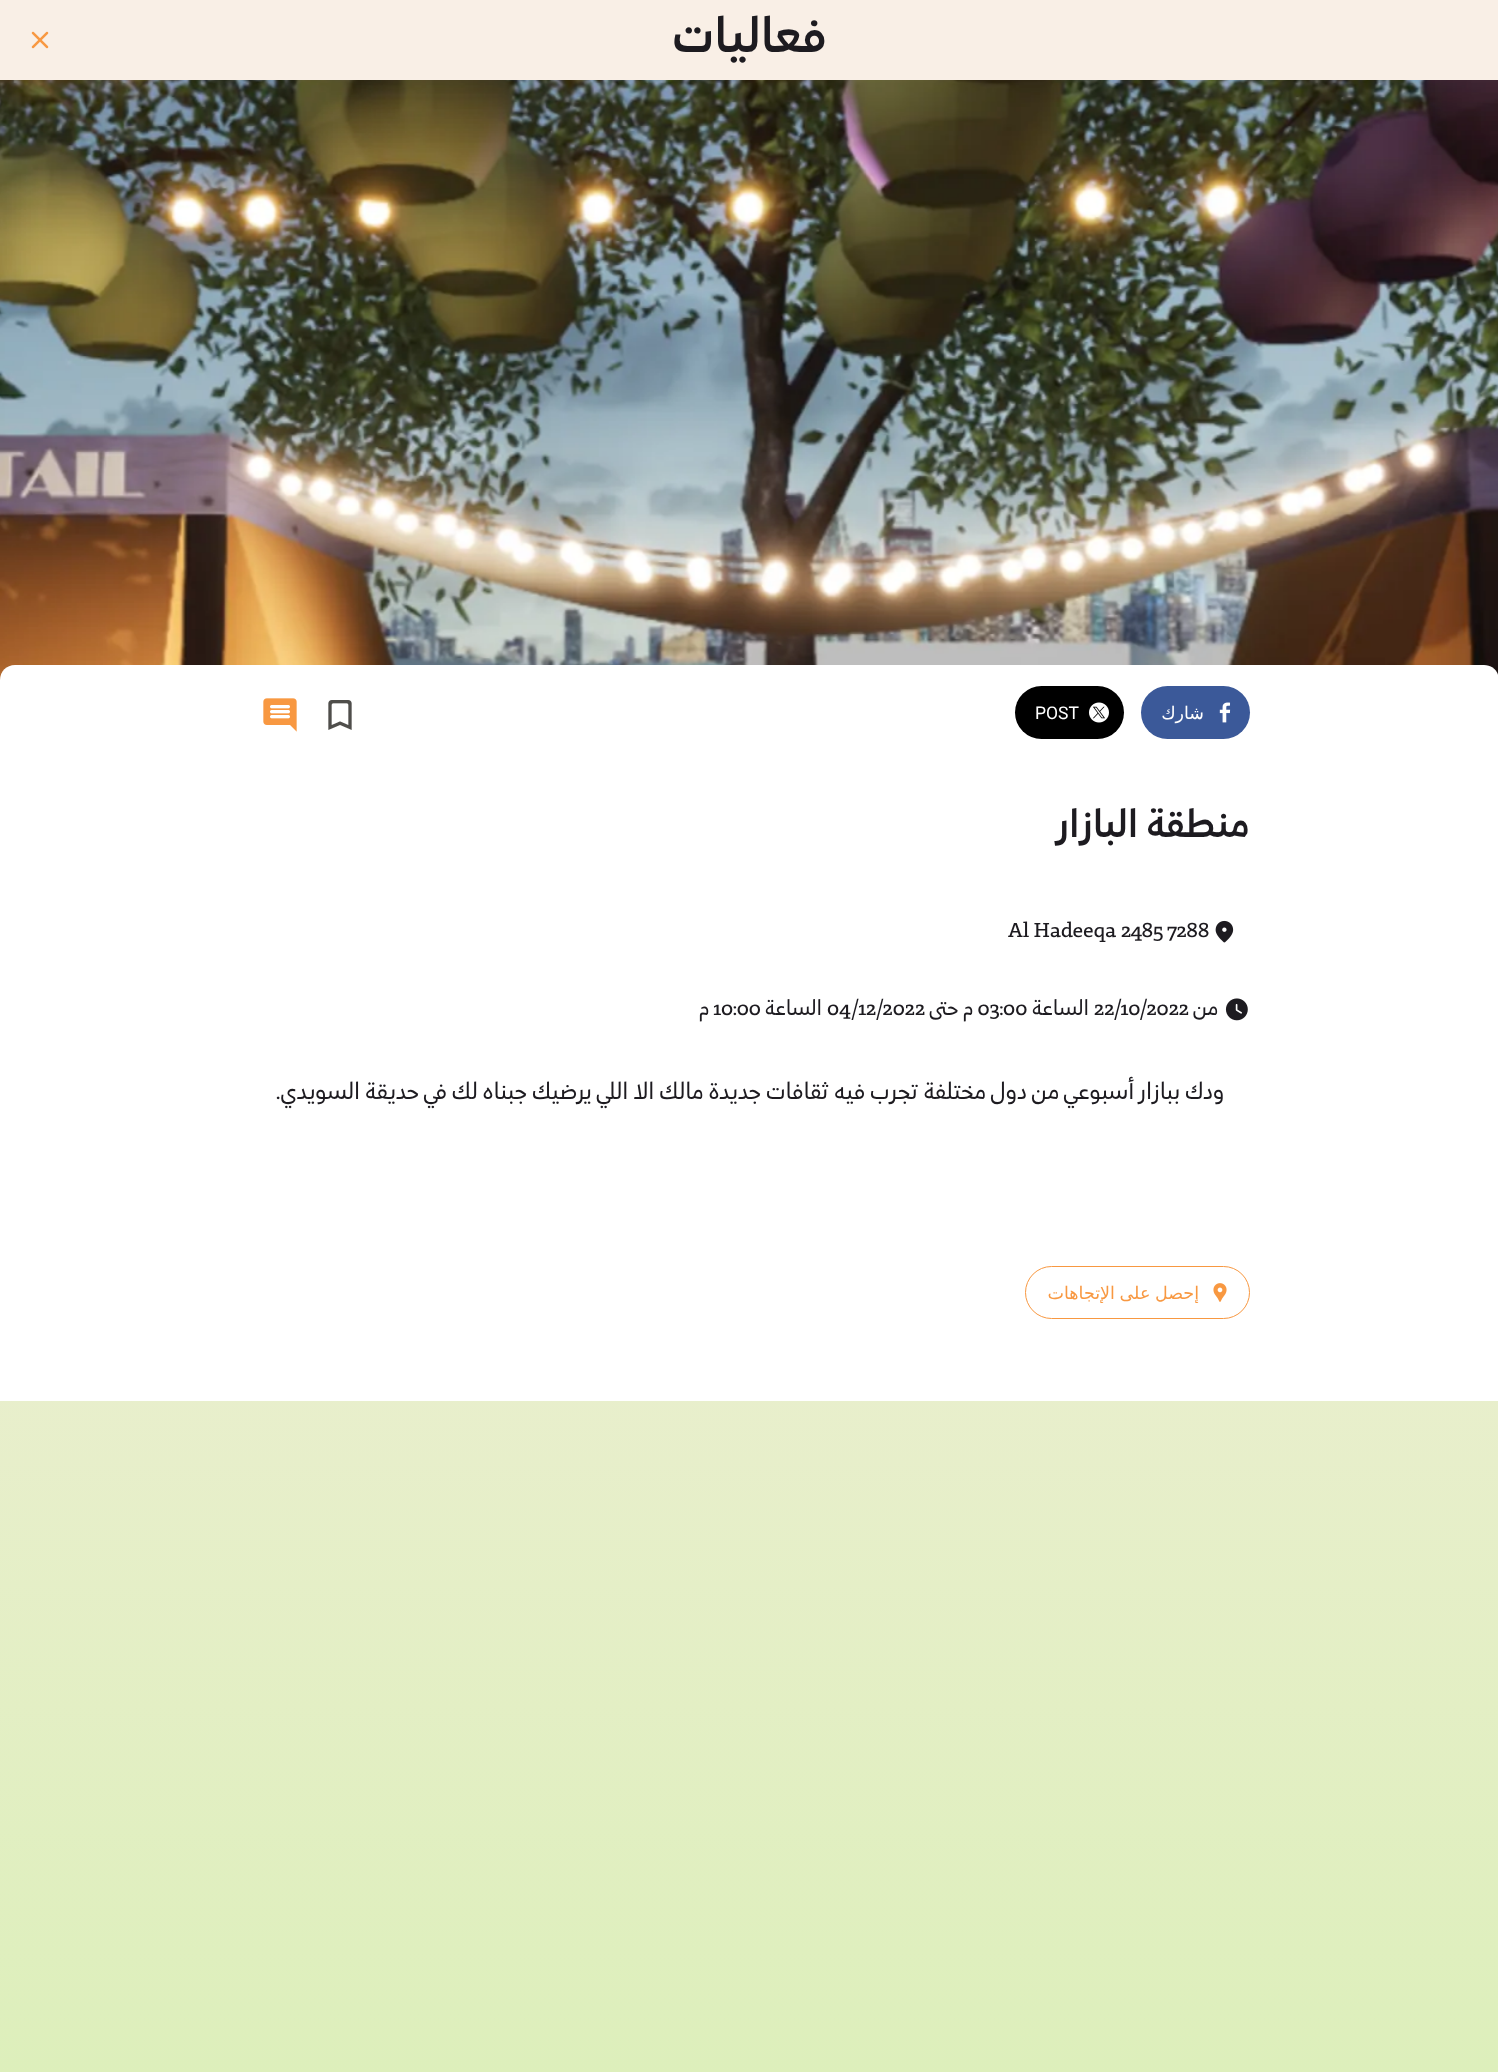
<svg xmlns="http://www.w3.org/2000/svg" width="1498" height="2072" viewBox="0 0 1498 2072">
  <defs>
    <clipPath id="clip1"><rect x="1048" y="1283" width="151" height="20"/></clipPath>
    <linearGradient id="g1" gradientUnits="userSpaceOnUse" x1="749" y1="0" x2="749" y2="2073"><stop offset="0" stop-color="rgb(255,238,238)"/><stop offset="1" stop-color="rgb(221,239,187)"/></linearGradient>
  </defs>
  <rect width="100%" height="100%" fill="rgb(255,255,255)"/>
  <rect x="0" y="0" width="1498" height="80" fill="rgb(249,239,230)"/>
  <text x="826" y="52" font-family="'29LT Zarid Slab'" font-size="60" font-weight="600" direction="rtl" fill="rgb(29,27,32)">فعاليات</text>
  <image x="31" y="31" width="18" height="18" href="pic1.png"/>
  <image x="0" y="80" width="1498" height="600" href="pic2.png"/>
  <path d="M15 665H1484C1492.5 665 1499 671.5 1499 680V1401H0V680C0 671.5 6.5 665 15 665Z" fill="rgb(255,255,255)"/>
  <rect x="1141" y="686" width="109" height="53" rx="26.5" fill="rgb(59,89,153)"/>
  <image x="1219" y="702" width="12" height="21" href="pic3.png"/>
  <text x="1204" y="719" font-family="DejaVu Sans" font-size="17.5" direction="rtl" fill="rgb(255,255,255)">شارك</text>
  <rect x="1015" y="686" width="109" height="53" rx="26.5" fill="rgb(0,0,0)"/>
  <image x="1089" y="702" width="20" height="21" href="pic4.png"/>
  <text x="1035" y="719" font-family="Roboto" font-size="17.5" fill="rgb(255,255,255)">POST</text>
  <image x="328" y="700" width="24" height="30" href="pic5.png"/>
  <image x="263" y="698" width="34" height="34" href="pic6.png"/>
  <text x="1249" y="837" font-family="'29LT Zarid Slab'" font-size="47.5" font-weight="600" direction="rtl" fill="rgb(29,27,32)">منطقة البازار</text>
  <image x="1215" y="920" width="19" height="23" href="pic7.png"/>
  <text x="1008" y="937" font-family="'29LT Zarid Slab'" font-size="26.25" font-weight="500" fill="rgb(29,27,32)">Al Hadeeqa 2485 7288</text>
  <image x="1225" y="998" width="23" height="23" href="pic8.png"/>
  <text x="1218" y="1015" font-family="'29LT Zarid Slab'" font-size="26.25" font-weight="500" direction="rtl" fill="rgb(29,27,32)">من</text>
  <text x="1094" y="1015" font-family="'29LT Zarid Slab'" font-size="26.25" font-weight="500" fill="rgb(29,27,32)">22/10/2022</text>
  <text x="1089" y="1015" font-family="'29LT Zarid Slab'" font-size="26.25" font-weight="500" direction="rtl" fill="rgb(29,27,32)">الساعة</text>
  <text x="978" y="1015" font-family="'29LT Zarid Slab'" font-size="26.25" font-weight="500" fill="rgb(29,27,32)">03:00</text>
  <text x="973" y="1015" font-family="'29LT Zarid Slab'" font-size="26.25" font-weight="500" direction="rtl" fill="rgb(29,27,32)">م حتى</text>
  <text x="827" y="1015" font-family="'29LT Zarid Slab'" font-size="26.25" font-weight="500" fill="rgb(29,27,32)">04/12/2022</text>
  <text x="822" y="1015" font-family="'29LT Zarid Slab'" font-size="26.25" font-weight="500" direction="rtl" fill="rgb(29,27,32)">الساعة</text>
  <text x="714" y="1015" font-family="'29LT Zarid Slab'" font-size="26.25" font-weight="500" fill="rgb(29,27,32)">10:00</text>
  <text x="709" y="1015" font-family="'29LT Zarid Slab'" font-size="26.25" font-weight="500" direction="rtl" fill="rgb(29,27,32)">م</text>
  <text x="1224" y="1099" font-family="'29LT Zarid Slab'" font-size="28.75" font-weight="500" direction="rtl" fill="rgb(29,27,32)">ودك ببازار أسبوعي من دول مختلفة تجرب فيه ثقافات جديدة مالك الا اللي يرضيك جبناه لك في حديقة السويدي.</text>
  <rect x="1025.5" y="1266.5" width="224" height="52" rx="26" fill="none" stroke="rgb(248,152,65)"/>
  <image x="1213" y="1283" width="14" height="19" href="pic9.png"/>
  <g clip-path="url(#clip1)">
    <text x="1199" y="1299" word-spacing="-1" font-family="DejaVu Sans" font-size="17.5" direction="rtl" fill="rgb(248,152,65)">إحصل على الإتجاهات</text>
  </g>
  <rect x="0" y="1401" width="1498" height="671" fill="url(#g1)"/>
</svg>
